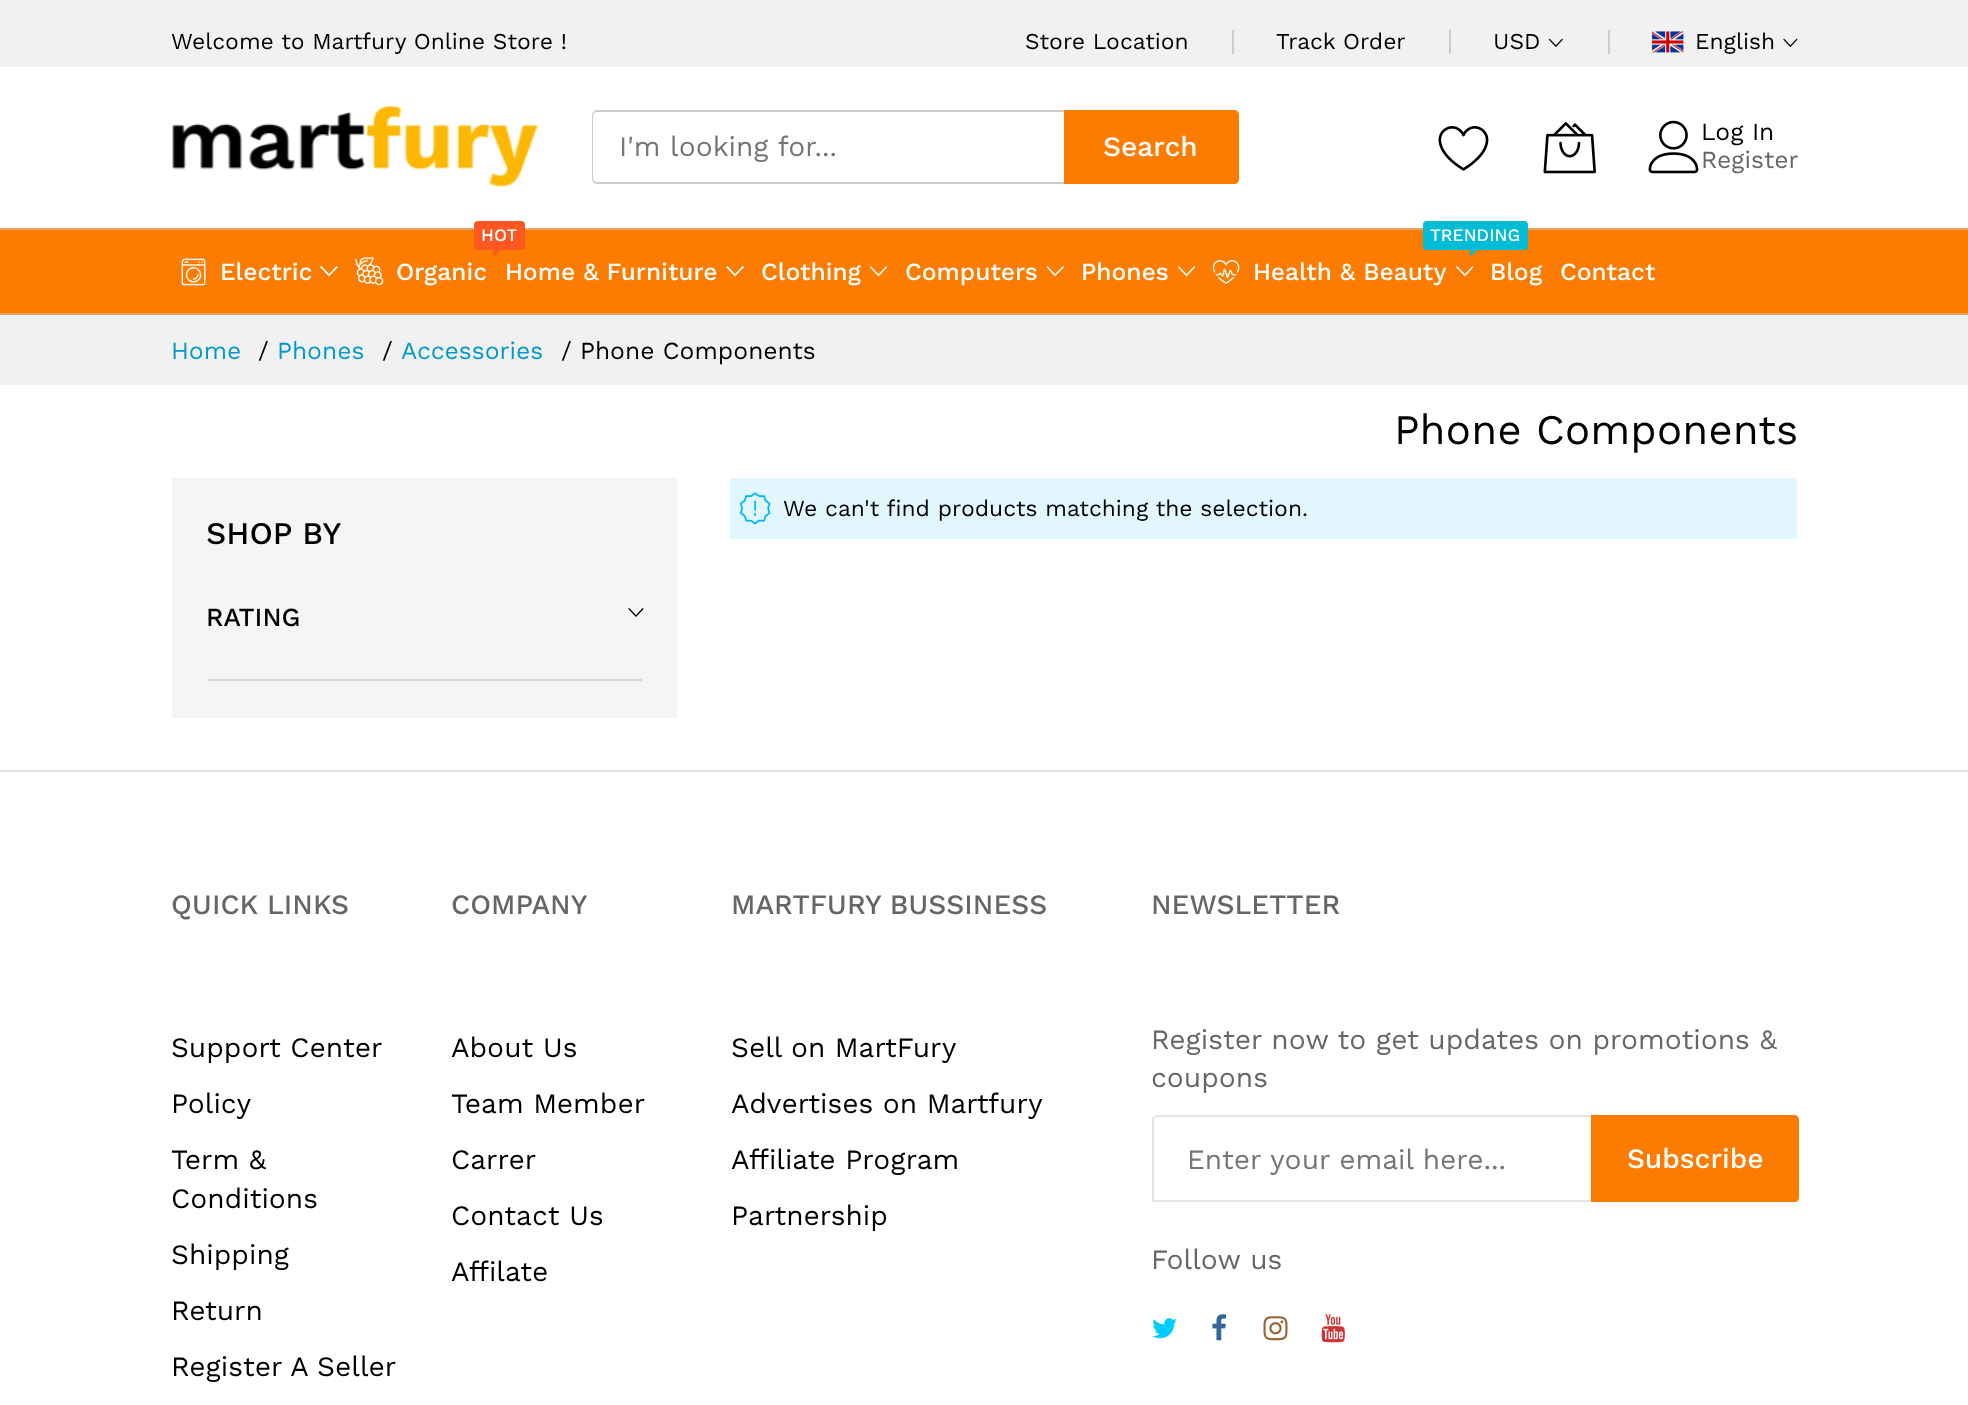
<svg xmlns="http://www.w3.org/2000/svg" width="1968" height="1405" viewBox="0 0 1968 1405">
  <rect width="100%" height="100%" fill="rgb(255,255,255)"/>
  <rect x="0" y="0" width="1968" height="67" fill="rgb(241,241,241)"/>
  <g font-family="Work Sans" font-size="22.75" fill="rgb(0,0,0)">
    <text x="171" y="49">Welcome to Martfury Online Store !</text>
    <text x="1025" y="49">Store Location</text>
  </g>
  <rect x="1232" y="30" width="2" height="24" fill="rgb(204,204,204)"/>
  <text x="1276" y="49" font-family="Work Sans" font-size="22.75" fill="rgb(0,0,0)">Track Order</text>
  <rect x="1449" y="30" width="2" height="24" fill="rgb(204,204,204)"/>
  <text x="1493" y="49" font-family="Work Sans" font-size="22.75" fill="rgb(0,0,0)">USD</text>
  <image x="1548" y="38" width="15" height="9" href="pic1.png"/>
  <rect x="1608" y="30" width="2" height="24" fill="rgb(204,204,204)"/>
  <image x="1652" y="31" width="32" height="22" href="pic2.png"/>
  <text x="1695" y="49" font-family="Work Sans" font-size="22.75" fill="rgb(0,0,0)">English</text>
  <image x="1783" y="38" width="15" height="9" href="pic3.png"/>
  <image x="172" y="106" width="367" height="81" href="pic4.png"/>
  <path d="M597 110H1064V184H597C594 184 592 181 592 178V116C592 113 594 110 597 110ZM597 112H1064V182H597C595 182 593 180 593 178V116C593 114 595 112 597 112Z" fill="rgb(204,204,204)" fill-rule="evenodd"/>
  <text x="619" y="156" font-family="Work Sans" font-size="28" fill="rgb(117,117,117)">I'm looking for...</text>
  <path d="M1064 110H1234C1237 110 1239 112 1239 115V179C1239 182 1237 184 1234 184H1064Z" fill="rgb(251,124,0)"/>
  <text x="1103" y="156" font-family="Work Sans" font-size="28" font-weight="500" fill="rgb(255,255,255)">Search</text>
  <image x="1438" y="126" width="51" height="45" href="pic5.png"/>
  <image x="1543" y="122" width="53" height="52" href="pic6.png"/>
  <image x="1648" y="120" width="51" height="54" href="pic7.png"/>
  <text x="1701" y="140" font-family="Work Sans" font-size="24.5" fill="rgb(0,0,0)">Log In</text>
  <text x="1701" y="168" font-family="Work Sans" font-size="24.5" fill="rgb(102,102,102)">Register</text>
  <rect x="0" y="230" width="1968" height="83" fill="rgb(251,124,0)"/>
  <rect x="0" y="228" width="1968" height="2" fill="rgb(228,164,102)"/>
  <rect x="0" y="313" width="1968" height="2" fill="rgb(228,164,102)"/>
  <image x="181" y="258" width="25" height="28" href="pic8.png"/>
  <text x="220" y="280" font-family="Work Sans" font-size="24.5" font-weight="500" fill="rgb(255,255,255)">Electric</text>
  <path d="M336.5 266L338 267L329 276.5L320 267L321.5 266L329 274Z" fill="rgb(255,255,255)"/>
  <image x="355" y="257" width="29" height="29" href="pic9.png"/>
  <rect x="474" y="221" width="51" height="29" rx="4" fill="rgb(255,87,34)"/>
  <text x="481" y="241" font-family="Work Sans" font-size="17.5" font-weight="500" fill="rgb(255,255,255)">HOT</text>
  <path d="M493.5 250H500.5L493.5 257Z" fill="rgb(255,87,34)"/>
  <g font-family="Work Sans" font-size="24.5" font-weight="500" fill="rgb(255,255,255)">
    <text x="396" y="280">Organic</text>
    <text x="505" y="280">Home &amp; Furniture</text>
  </g>
  <path d="M742.5 266L744 267L735 276.5L726 267L727.5 266L735 274Z" fill="rgb(255,255,255)"/>
  <text x="761" y="280" font-family="Work Sans" font-size="24.5" font-weight="500" fill="rgb(255,255,255)">Clothing</text>
  <image x="869" y="266" width="19" height="11" href="pic10.png"/>
  <text x="1081" y="280" font-family="Work Sans" font-size="24.5" font-weight="500" fill="rgb(255,255,255)">Phones</text>
  <image x="1177" y="266" width="19" height="11" href="pic10.png"/>
  <image x="1212" y="260" width="28" height="24" href="pic11.png"/>
  <rect x="1423" y="221" width="105" height="29" rx="4" fill="rgb(0,188,212)"/>
  <text x="1430" y="241" font-family="Work Sans" font-size="17.5" font-weight="500" fill="rgb(255,255,255)">TRENDING</text>
  <path d="M1470 250H1477L1470 257Z" fill="rgb(0,188,212)"/>
  <text x="1253" y="280" font-family="Work Sans" font-size="24.5" font-weight="500" fill="rgb(255,255,255)">Health &amp; Beauty</text>
  <path d="M1472.5 266L1473.5 267L1465 276.5L1456 267L1457 266L1465 274Z" fill="rgb(255,255,255)"/>
  <text x="905" y="280" font-family="Work Sans" font-size="24.5" font-weight="500" fill="rgb(255,255,255)">Computers</text>
  <path d="M1063 266L1064 267L1055 276.5L1046.5 267L1047.5 266L1055 274Z" fill="rgb(255,255,255)"/>
  <g font-family="Work Sans" font-size="24.5" font-weight="500" fill="rgb(255,255,255)">
    <text x="1490" y="280">Blog</text>
    <text x="1560" y="280">Contact</text>
  </g>
  <rect x="0" y="315" width="1968" height="70" fill="rgb(241,241,241)"/>
  <text x="171" y="359" font-family="Work Sans" font-size="24.5" fill="rgb(0,153,204)">Home</text>
  <text x="258" y="359" font-family="Work Sans" font-size="24.5" fill="rgb(0,0,0)">/</text>
  <text x="277" y="359" font-family="Work Sans" font-size="24.5" fill="rgb(0,153,204)">Phones</text>
  <text x="382" y="359" font-family="Work Sans" font-size="24.5" fill="rgb(0,0,0)">/</text>
  <text x="401" y="359" font-family="Work Sans" font-size="24.5" fill="rgb(0,153,204)">Accessories</text>
  <g font-family="Work Sans" font-size="24.5" fill="rgb(0,0,0)">
    <text x="561" y="359">/</text>
    <text x="580" y="359">Phone Components</text>
  </g>
  <text x="1394" y="444" font-family="Work Sans" font-size="42" fill="rgb(0,0,0)">Phone Components</text>
  <rect x="730" y="478" width="1067" height="61" fill="rgb(226,246,254)"/>
  <image x="739" y="492" width="32" height="33" href="pic12.png"/>
  <text x="783" y="516" font-family="Work Sans" font-size="22.75" fill="rgb(0,0,0)">We can't find products matching the selection.</text>
  <rect x="172" y="478" width="505" height="240" fill="rgb(245,245,245)"/>
  <text x="206" y="544" font-family="Work Sans" font-size="31.5" font-weight="500" fill="rgb(0,0,0)">SHOP BY</text>
  <text x="206" y="626" font-family="Work Sans" font-size="26" font-weight="500" fill="rgb(0,0,0)">RATING</text>
  <image x="628" y="608" width="16" height="9" href="pic13.png"/>
  <rect x="207" y="679" width="435" height="2" fill="rgb(216,216,216)"/>
  <rect x="0" y="770" width="1968" height="2" fill="rgb(225,225,225)"/>
  <text x="171" y="914" font-family="Work Sans" font-size="28" font-weight="500" fill="rgb(102,102,102)">QUICK LINKS</text>
  <g font-family="Work Sans" font-size="28" fill="rgb(0,0,0)">
    <text x="171" y="1057">Support Center</text>
    <text x="171" y="1113">Policy</text>
    <text>
      <tspan x="171" y="1169">Term &amp;</tspan>
      <tspan x="171" y="1208">Conditions</tspan>
    </text>
    <text x="171" y="1264">Shipping</text>
    <text x="171" y="1320">Return</text>
    <text x="171" y="1376">Register A Seller</text>
  </g>
  <text x="451" y="914" font-family="Work Sans" font-size="28" font-weight="500" fill="rgb(102,102,102)">COMPANY</text>
  <g font-family="Work Sans" font-size="28" fill="rgb(0,0,0)">
    <text x="451" y="1057">About Us</text>
    <text x="451" y="1113">Team Member</text>
    <text x="451" y="1169">Carrer</text>
    <text x="451" y="1225">Contact Us</text>
    <text x="451" y="1281">Affilate</text>
  </g>
  <text x="731" y="914" font-family="Work Sans" font-size="28" font-weight="500" fill="rgb(102,102,102)">MARTFURY BUSSINESS</text>
  <g font-family="Work Sans" font-size="28" fill="rgb(0,0,0)">
    <text x="731" y="1057">Sell on MartFury</text>
    <text x="731" y="1113">Advertises on Martfury</text>
    <text x="731" y="1169">Affiliate Program</text>
    <text x="731" y="1225">Partnership</text>
  </g>
  <text x="1151" y="914" font-family="Work Sans" font-size="28" font-weight="500" fill="rgb(102,102,102)">NEWSLETTER</text>
  <g font-family="Work Sans" font-size="28" fill="rgb(102,102,102)">
    <text>
      <tspan x="1151" y="1049">Register now to get updates on promotions &amp;</tspan>
      <tspan x="1151" y="1087">coupons</tspan>
    </text>
  </g>
  <path d="M1157 1116H1794C1796 1116 1798 1118 1798 1120V1201H1153V1120C1153 1118 1155 1116 1157 1116Z" fill="none" stroke="rgb(229,229,229)" stroke-width="2"/>
  <text x="1187" y="1169" font-family="Work Sans" font-size="28" fill="rgb(117,117,117)">Enter your email here...</text>
  <path d="M1591 1115H1794C1797 1115 1799 1117 1799 1120V1197C1799 1200 1797 1202 1794 1202H1591Z" fill="rgb(251,124,0)"/>
  <path d="M1591 1115H1591.5L1591 1115.5Z" fill="rgb(253,190,128)"/>
  <text x="1627" y="1168" font-family="Work Sans" font-size="28" font-weight="500" fill="rgb(255,255,255)">Subscribe</text>
  <text x="1151" y="1269" font-family="Work Sans" font-size="28" fill="rgb(102,102,102)">Follow us</text>
  <image x="1152" y="1318" width="25" height="21" href="pic14.png"/>
  <image x="1212" y="1314" width="14" height="27" href="pic15.png"/>
  <image x="1263" y="1316" width="25" height="25" href="pic16.png"/>
  <image x="1321" y="1314" width="24" height="29" href="pic17.png"/>
</svg>
